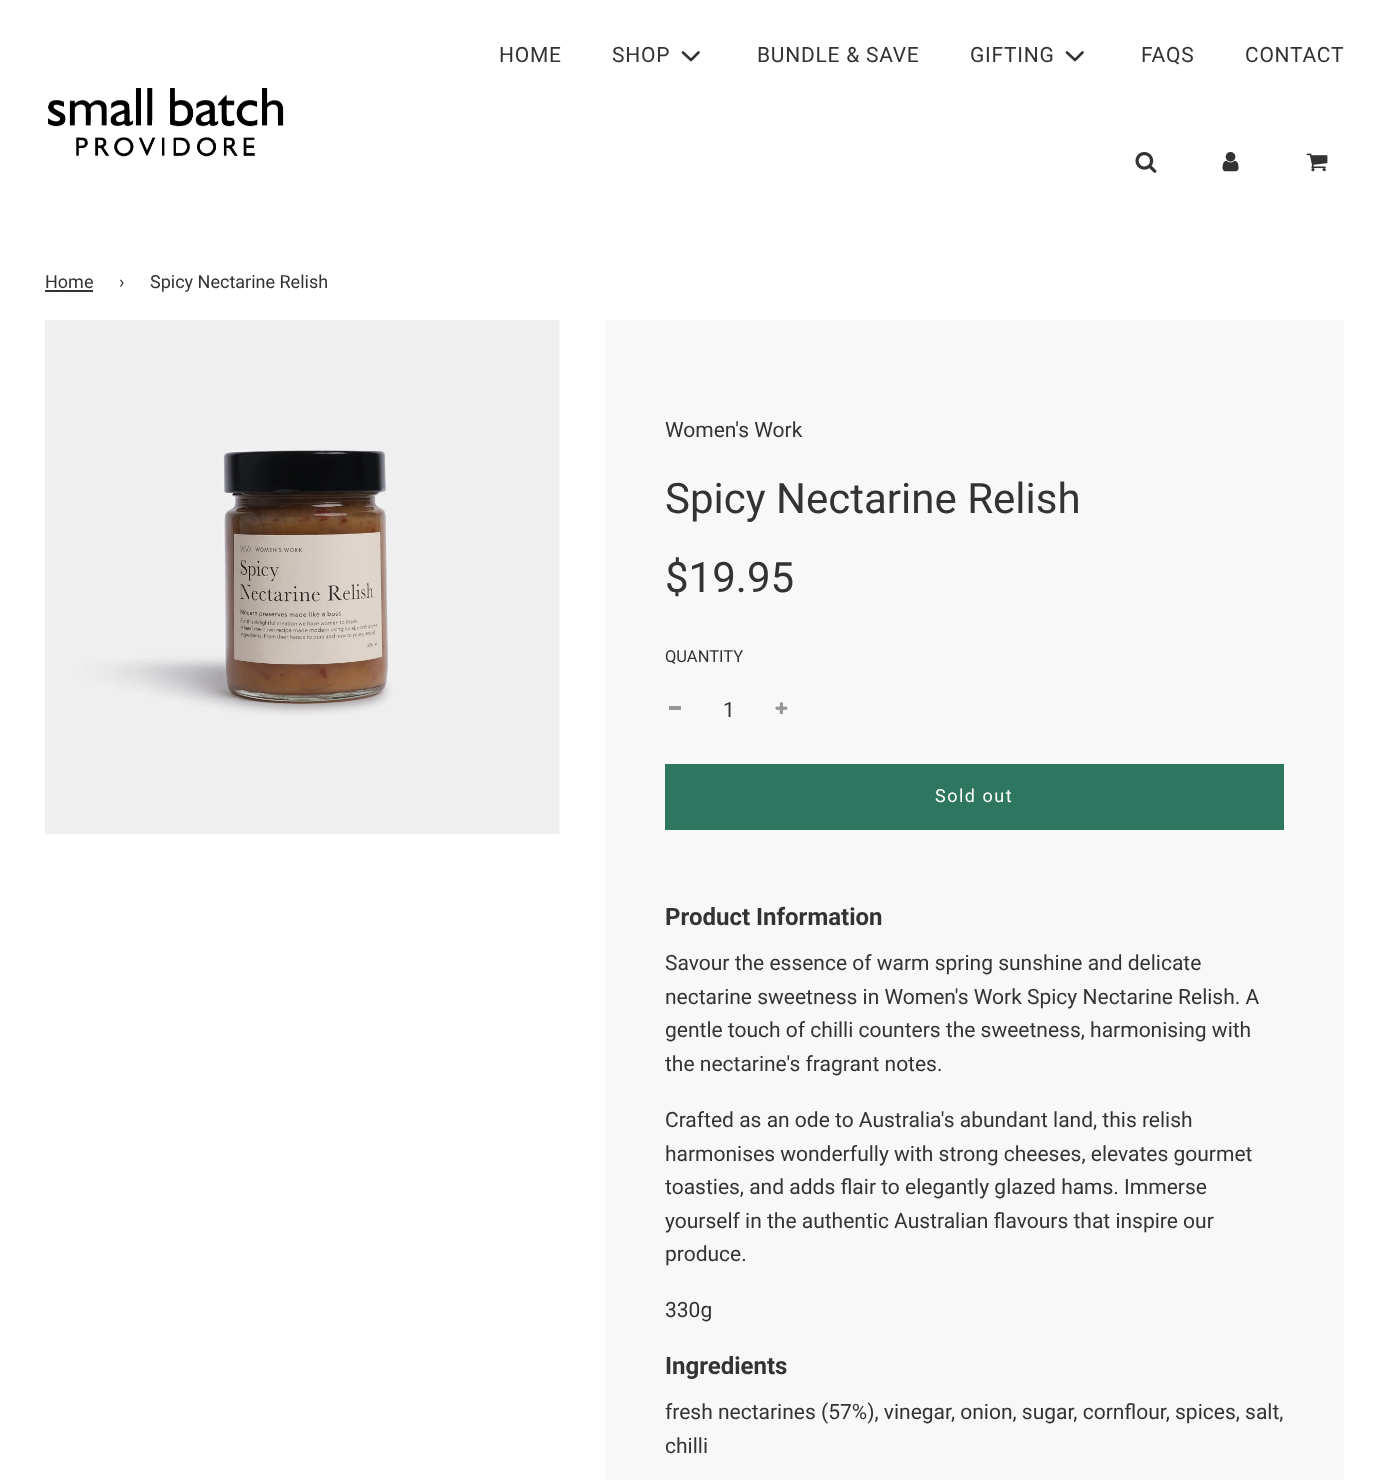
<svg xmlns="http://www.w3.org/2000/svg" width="1389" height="1480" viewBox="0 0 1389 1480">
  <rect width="100%" height="100%" fill="rgb(255,255,255)"/>
  <g font-family="Roboto" font-size="21" letter-spacing="0.75" fill="rgb(51,51,51)">
    <text x="499" y="62">HOME</text>
    <text x="612" y="62">SHOP</text>
  </g>
  <path d="M683 52.5L691 60L698.5 52.5" fill="none" stroke="rgb(51,51,51)" stroke-width="2.6" stroke-linecap="round" stroke-linejoin="round"/>
  <g font-family="Roboto" font-size="21" letter-spacing="0.75" fill="rgb(51,51,51)">
    <text x="757" y="62">BUNDLE &amp; SAVE</text>
    <text x="970" y="62">GIFTING</text>
  </g>
  <path d="M1067 52.5L1075 60L1082.5 52.5" fill="none" stroke="rgb(51,51,51)" stroke-width="2.6" stroke-linecap="round" stroke-linejoin="round"/>
  <g font-family="Roboto" font-size="21" letter-spacing="0.75" fill="rgb(51,51,51)">
    <text x="1141" y="62">FAQS</text>
    <text x="1245" y="62">CONTACT</text>
  </g>
  <image x="1135" y="152" width="22" height="21" href="pic1.png"/>
  <image x="1222" y="152" width="17" height="20" href="pic2.png"/>
  <image x="1306" y="153" width="22" height="19" href="pic3.png"/>
  <image x="47" y="88" width="237" height="69" href="pic4.png"/>
  <text x="45" y="288" font-family="Roboto" font-size="18" fill="rgb(51,51,51)">Home</text>
  <rect x="45" y="290" width="48" height="2" fill="rgb(51,51,51)"/>
  <g font-family="Roboto" font-size="18" fill="rgb(51,51,51)">
    <text x="119" y="288">›</text>
    <text x="150" y="288">Spicy Nectarine Relish</text>
  </g>
  <image x="45" y="320" width="515" height="514" href="pic5.png"/>
  <rect x="605" y="320" width="739" height="1160" fill="rgb(248,248,248)"/>
  <text x="665" y="437" font-family="Roboto" font-size="21" fill="rgb(51,51,51)">Women's Work</text>
  <g font-family="Roboto" font-size="42" fill="rgb(51,51,51)">
    <text>
      <tspan x="665" y="513">Spicy Nectarine Relish</tspan>
      <tspan x="665" y="592">$19.95</tspan>
    </text>
  </g>
  <text x="665" y="662" font-family="Roboto" font-size="16.5" fill="rgb(51,51,51)">QUANTITY</text>
  <rect x="669" y="706" width="12" height="4" fill="rgb(150,150,150)"/>
  <text x="723" y="717" font-family="Roboto" font-size="21" fill="rgb(51,51,51)">1</text>
  <image x="775" y="702" width="13" height="13" href="pic6.png"/>
  <rect x="665" y="764" width="619" height="66" fill="rgb(46,118,95)"/>
  <text x="935" y="802" font-family="Roboto" font-size="18" letter-spacing="1.5" fill="rgb(255,255,255)">Sold out</text>
  <text x="665" y="925" font-family="Roboto" font-size="24" font-weight="bold" fill="rgb(51,51,51)">Product Information</text>
  <g font-family="Roboto" font-size="21" fill="rgb(51,51,51)">
    <text>
      <tspan x="665" y="970">Savour the essence of warm spring sunshine and delicate</tspan>
      <tspan x="665" y="1004">nectarine sweetness in Women's Work Spicy Nectarine Relish. A</tspan>
      <tspan x="665" y="1037">gentle touch of chilli counters the sweetness, harmonising with</tspan>
      <tspan x="665" y="1071">the nectarine's fragrant notes.</tspan>
    </text>
    <text>
      <tspan x="665" y="1127">Crafted as an ode to Australia's abundant land, this relish</tspan>
      <tspan x="665" y="1161">harmonises wonderfully with strong cheeses, elevates gourmet</tspan>
      <tspan x="665" y="1194">toasties, and adds flair to elegantly glazed hams. Immerse</tspan>
      <tspan x="665" y="1228">yourself in the authentic Australian flavours that inspire our</tspan>
      <tspan x="665" y="1261">produce.</tspan>
    </text>
    <text x="665" y="1317">330g</text>
  </g>
  <text x="665" y="1374" font-family="Roboto" font-size="24" font-weight="bold" fill="rgb(51,51,51)">Ingredients</text>
  <g font-family="Roboto" font-size="21" fill="rgb(51,51,51)">
    <text>
      <tspan x="665" y="1419">fresh nectarines (57%), vinegar, onion, sugar, cornflour, spices, salt,</tspan>
      <tspan x="665" y="1453">chilli</tspan>
    </text>
  </g>
</svg>
